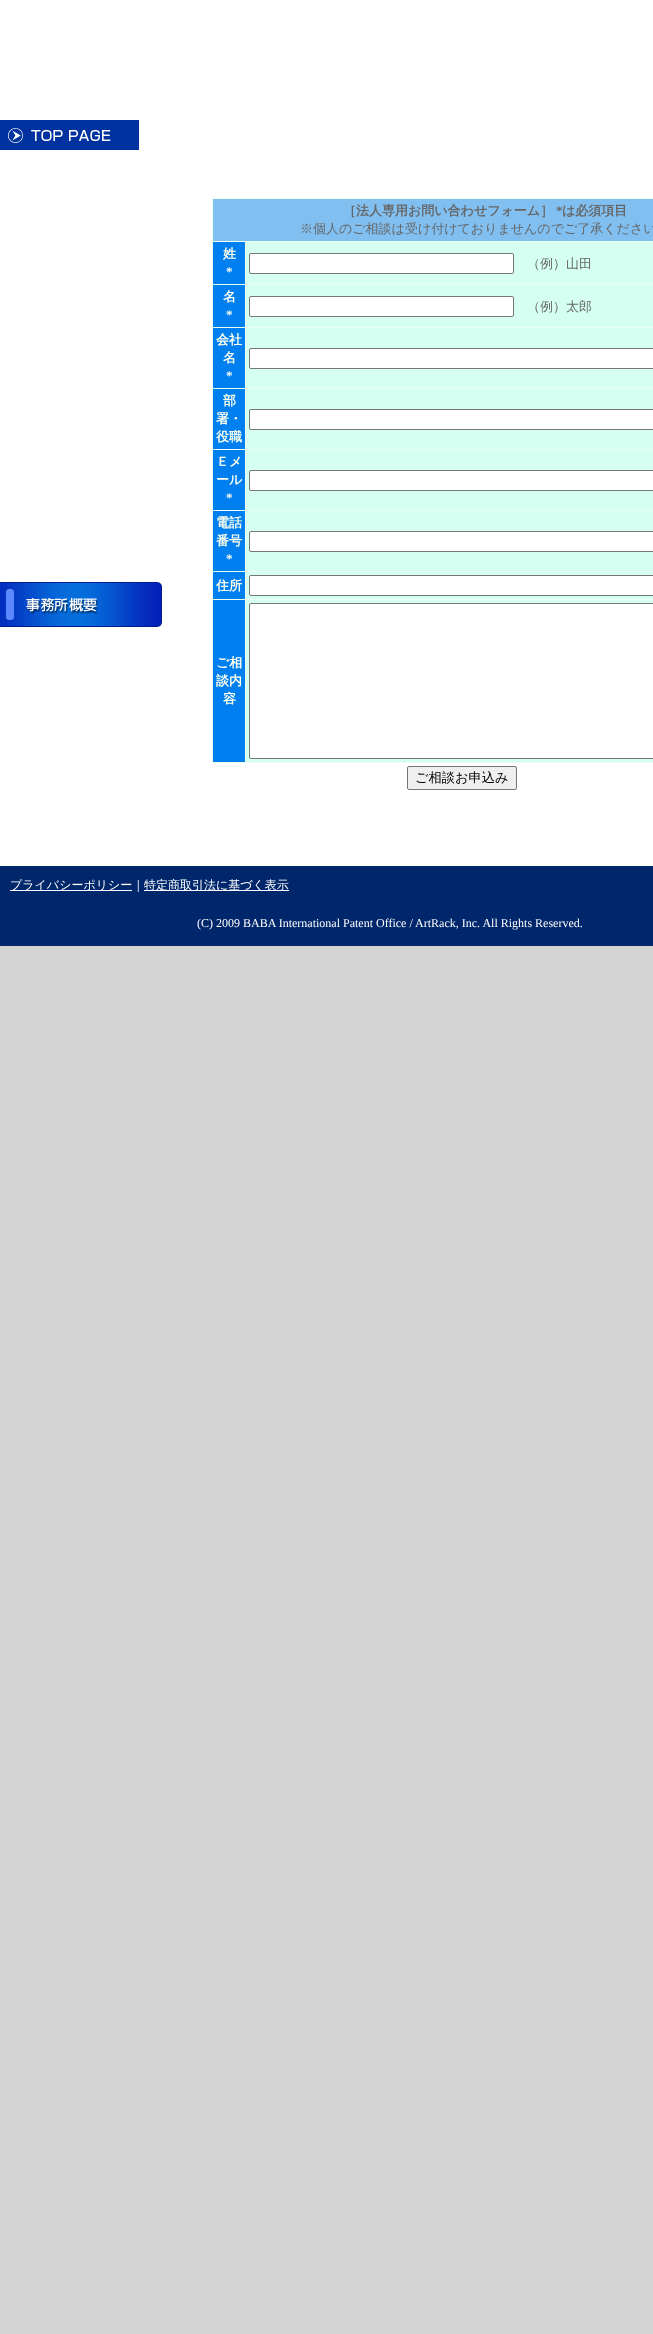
<svg xmlns="http://www.w3.org/2000/svg" width="653" height="2334" viewBox="0 0 653 2334">
  <rect width="100%" height="100%" fill="rgb(212,212,212)"/>
  <rect x="0" y="0" width="653" height="866" fill="rgb(255,255,255)"/>
  <image x="0" y="120" width="139" height="30" href="pic1.png"/>
  <image x="0" y="582" width="162" height="45" href="pic2.png"/>
  <rect x="212" y="198" width="441" height="565" fill="rgb(234,255,240)"/>
  <rect x="213" y="199" width="440" height="42" fill="rgb(128,191,240)"/>
  <text x="343" y="215" font-family="WenQuanYi Zen Hei" font-size="13" font-weight="bold" fill="rgb(102,102,102)">［法人専用お問い合わせフォーム］</text>
  <text x="556" y="215" font-family="Liberation Serif" font-size="13" font-weight="bold" fill="rgb(102,102,102)">*</text>
  <text x="562" y="215" font-family="WenQuanYi Zen Hei" font-size="13" font-weight="bold" fill="rgb(102,102,102)">は必須項目</text>
  <text x="300" y="233" font-family="WenQuanYi Zen Hei" font-size="13" font-weight="500" fill="rgb(102,102,102)">※個人のご相談は受け付けておりませんのでご了承ください</text>
  <rect x="213" y="242" width="32" height="42" fill="rgb(0,128,240)"/>
  <text x="223" y="258" font-family="WenQuanYi Zen Hei" font-size="13" font-weight="bold" fill="rgb(255,255,240)">姓</text>
  <text x="226" y="276" font-family="Liberation Serif" font-size="13" font-weight="bold" fill="rgb(255,255,240)">*</text>
  <rect x="246" y="242" width="407" height="42" fill="rgb(213,255,240)"/>
  <rect x="249.5" y="253.5" width="264" height="20" rx="1.5" fill="rgb(255,255,255)" stroke="rgb(118,118,118)"/>
  <text x="527" y="268" font-family="WenQuanYi Zen Hei" font-size="13" font-weight="500" fill="rgb(102,102,102)">（例）山田</text>
  <rect x="213" y="285" width="32" height="42" fill="rgb(0,128,240)"/>
  <text x="223" y="301" font-family="WenQuanYi Zen Hei" font-size="13" font-weight="bold" fill="rgb(255,255,240)">名</text>
  <text x="226" y="319" font-family="Liberation Serif" font-size="13" font-weight="bold" fill="rgb(255,255,240)">*</text>
  <rect x="246" y="285" width="407" height="42" fill="rgb(213,255,240)"/>
  <rect x="249.5" y="296.5" width="264" height="20" rx="1.5" fill="rgb(255,255,255)" stroke="rgb(118,118,118)"/>
  <text x="527" y="311" font-family="WenQuanYi Zen Hei" font-size="13" font-weight="500" fill="rgb(102,102,102)">（例）太郎</text>
  <rect x="213" y="328" width="32" height="60" fill="rgb(0,128,240)"/>
  <g font-family="WenQuanYi Zen Hei" font-size="13" font-weight="bold" fill="rgb(255,255,240)">
    <text x="216" y="344">会社</text>
    <text x="223" y="362">名</text>
  </g>
  <text x="226" y="380" font-family="Liberation Serif" font-size="13" font-weight="bold" fill="rgb(255,255,240)">*</text>
  <rect x="246" y="328" width="407" height="60" fill="rgb(213,255,240)"/>
  <rect x="249.5" y="348.5" width="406" height="20" rx="1.5" fill="rgb(255,255,255)" stroke="rgb(118,118,118)"/>
  <rect x="213" y="389" width="32" height="60" fill="rgb(0,128,240)"/>
  <g font-family="WenQuanYi Zen Hei" font-size="13" font-weight="bold" fill="rgb(255,255,240)">
    <text x="223" y="405">部</text>
    <text>
      <tspan x="216" y="423">署・</tspan>
      <tspan x="216" y="441">役職</tspan>
    </text>
  </g>
  <rect x="246" y="389" width="407" height="60" fill="rgb(213,255,240)"/>
  <rect x="249.5" y="409.5" width="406" height="20" rx="1.5" fill="rgb(255,255,255)" stroke="rgb(118,118,118)"/>
  <rect x="213" y="450" width="32" height="60" fill="rgb(0,128,240)"/>
  <g font-family="WenQuanYi Zen Hei" font-size="13" font-weight="bold" fill="rgb(255,255,240)">
    <text>
      <tspan x="216" y="466">Ｅメ</tspan>
      <tspan x="216" y="484">ール</tspan>
    </text>
  </g>
  <text x="226" y="502" font-family="Liberation Serif" font-size="13" font-weight="bold" fill="rgb(255,255,240)">*</text>
  <rect x="246" y="450" width="407" height="60" fill="rgb(213,255,240)"/>
  <rect x="249.5" y="470.5" width="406" height="20" rx="1.5" fill="rgb(255,255,255)" stroke="rgb(118,118,118)"/>
  <rect x="213" y="511" width="32" height="60" fill="rgb(0,128,240)"/>
  <g font-family="WenQuanYi Zen Hei" font-size="13" font-weight="bold" fill="rgb(255,255,240)">
    <text>
      <tspan x="216" y="527">電話</tspan>
      <tspan x="216" y="545">番号</tspan>
    </text>
  </g>
  <text x="226" y="563" font-family="Liberation Serif" font-size="13" font-weight="bold" fill="rgb(255,255,240)">*</text>
  <rect x="246" y="511" width="407" height="60" fill="rgb(213,255,240)"/>
  <rect x="249.5" y="531.5" width="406" height="20" rx="1.5" fill="rgb(255,255,255)" stroke="rgb(118,118,118)"/>
  <rect x="213" y="572" width="32" height="27" fill="rgb(0,128,240)"/>
  <text x="216" y="590" font-family="WenQuanYi Zen Hei" font-size="13" font-weight="bold" fill="rgb(255,255,240)">住所</text>
  <rect x="246" y="572" width="407" height="27" fill="rgb(213,255,240)"/>
  <rect x="249.5" y="575.5" width="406" height="20" rx="1.5" fill="rgb(255,255,255)" stroke="rgb(118,118,118)"/>
  <rect x="213" y="600" width="32" height="162" fill="rgb(0,128,240)"/>
  <g font-family="WenQuanYi Zen Hei" font-size="13" font-weight="bold" fill="rgb(255,255,240)">
    <text>
      <tspan x="216" y="667">ご相</tspan>
      <tspan x="216" y="685">談内</tspan>
    </text>
    <text x="223" y="703">容</text>
  </g>
  <rect x="246" y="600" width="407" height="162" fill="rgb(213,255,240)"/>
  <rect x="249.5" y="603.5" width="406" height="155" rx="1.5" fill="rgb(255,255,255)" stroke="rgb(118,118,118)"/>
  <rect x="407.5" y="766.5" width="109" height="23" rx="1.5" fill="rgb(239,239,239)" stroke="rgb(118,118,118)"/>
  <text x="415" y="782" font-family="WenQuanYi Zen Hei" font-size="13.25" font-weight="500" fill="rgb(0,0,0)">ご相談お申込み</text>
  <rect x="0" y="866" width="653" height="80" fill="rgb(0,38,107)"/>
  <rect x="10" y="890" width="122" height="1" fill="rgb(255,255,255)"/>
  <text x="10" y="889" font-family="WenQuanYi Zen Hei" font-size="12" font-weight="500" fill="rgb(255,255,255)">プライバシーポリシー｜</text>
  <rect x="144" y="890" width="145" height="1" fill="rgb(255,255,255)"/>
  <text x="144" y="889" font-family="WenQuanYi Zen Hei" font-size="12" font-weight="500" fill="rgb(255,255,255)">特定商取引法に基づく表示</text>
  <text x="197" y="927" font-family="Liberation Serif" font-size="12" fill="rgb(255,255,255)">(C) 2009 BABA International Patent Office / ArtRack, Inc. All Rights Reserved.</text>
</svg>
